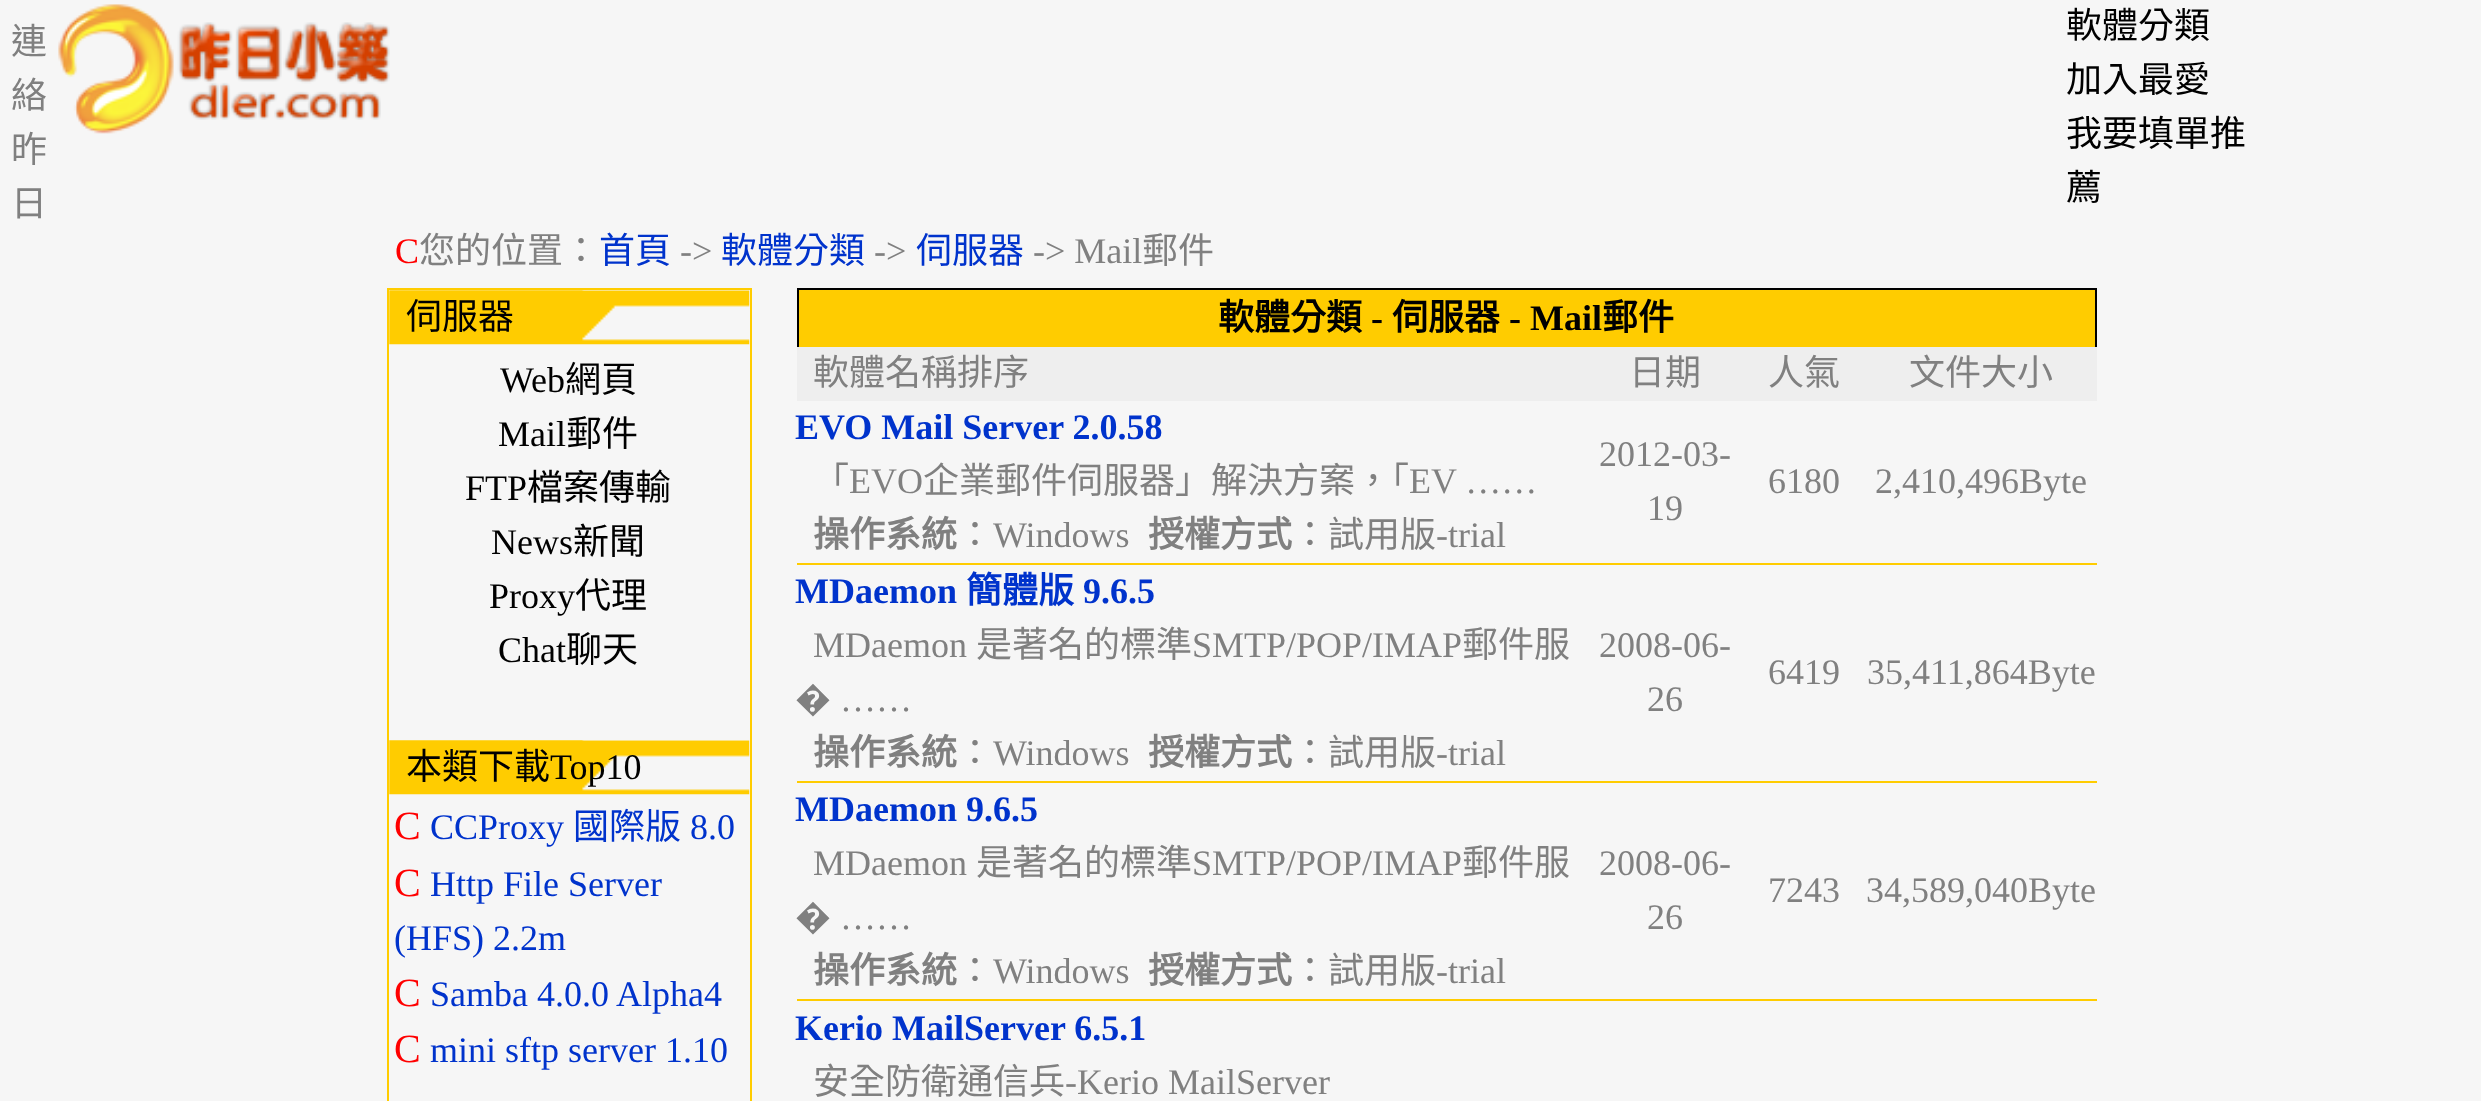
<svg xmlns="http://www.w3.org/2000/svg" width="2481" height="1101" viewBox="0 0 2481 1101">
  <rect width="100%" height="100%" fill="rgb(246,246,246)"/>
  <g font-family="Noto Sans CJK TC" font-size="36" fill="rgb(128,128,128)">
    <text>
      <tspan x="11" y="54">連</tspan>
      <tspan x="11" y="108">絡</tspan>
      <tspan x="11" y="162">昨</tspan>
      <tspan x="11" y="216">日</tspan>
    </text>
  </g>
  <image x="58" y="4" width="332" height="130" href="pic1.png"/>
  <g font-family="Noto Sans CJK TC" font-size="36" fill="rgb(0,0,0)">
    <text>
      <tspan x="2066" y="38">軟體分類</tspan>
      <tspan x="2066" y="92">加入最愛</tspan>
      <tspan x="2066" y="146">我要填單推</tspan>
      <tspan x="2066" y="200">薦</tspan>
    </text>
  </g>
  <text x="395" y="263" font-family="Liberation Serif" font-size="36" fill="rgb(255,0,0)">C</text>
  <text x="419" y="263" font-family="Noto Sans CJK TC" font-size="36" fill="rgb(128,128,128)">您的位置：</text>
  <text x="599" y="263" font-family="Noto Sans CJK TC" font-size="36" fill="rgb(0,51,204)">首頁</text>
  <text x="680" y="263" font-family="Liberation Serif" font-size="36" fill="rgb(128,128,128)">-&gt;</text>
  <text x="721" y="263" font-family="Noto Sans CJK TC" font-size="36" fill="rgb(0,51,204)">軟體分類</text>
  <text x="874" y="263" font-family="Liberation Serif" font-size="36" fill="rgb(128,128,128)">-&gt;</text>
  <text x="916" y="263" font-family="Noto Sans CJK TC" font-size="36" fill="rgb(0,51,204)">伺服器</text>
  <text x="1033" y="263" font-family="Liberation Serif" font-size="36" fill="rgb(128,128,128)">-&gt; Mail</text>
  <text x="1142" y="263" font-family="Noto Sans CJK TC" font-size="36" fill="rgb(128,128,128)">郵件</text>
  <rect x="388" y="289" width="363" height="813" fill="none" stroke="rgb(255,204,0)" stroke-width="2"/>
  <image x="389" y="290" width="361" height="55" href="pic2.png"/>
  <text x="406" y="329" font-family="Noto Sans CJK TC" font-size="36" fill="rgb(0,0,0)">伺服器</text>
  <text x="500" y="392" font-family="Liberation Serif" font-size="36" fill="rgb(0,0,0)">Web</text>
  <text x="565" y="392" font-family="Noto Sans CJK TC" font-size="36" fill="rgb(0,0,0)">網頁</text>
  <text x="498" y="446" font-family="Liberation Serif" font-size="36" fill="rgb(0,0,0)">Mail</text>
  <text x="566" y="446" font-family="Noto Sans CJK TC" font-size="36" fill="rgb(0,0,0)">郵件</text>
  <text x="465" y="500" font-family="Liberation Serif" font-size="36" fill="rgb(0,0,0)">FTP</text>
  <text x="527" y="500" font-family="Noto Sans CJK TC" font-size="36" fill="rgb(0,0,0)">檔案傳輸</text>
  <text x="491" y="554" font-family="Liberation Serif" font-size="36" fill="rgb(0,0,0)">News</text>
  <text x="573" y="554" font-family="Noto Sans CJK TC" font-size="36" fill="rgb(0,0,0)">新聞</text>
  <text x="489" y="608" font-family="Liberation Serif" font-size="36" fill="rgb(0,0,0)">Proxy</text>
  <text x="575" y="608" font-family="Noto Sans CJK TC" font-size="36" fill="rgb(0,0,0)">代理</text>
  <text x="498" y="662" font-family="Liberation Serif" font-size="36" fill="rgb(0,0,0)">Chat</text>
  <text x="566" y="662" font-family="Noto Sans CJK TC" font-size="36" fill="rgb(0,0,0)">聊天</text>
  <image x="389" y="740" width="361" height="55" href="pic2.png"/>
  <text x="406" y="779" font-family="Noto Sans CJK TC" font-size="36" fill="rgb(0,0,0)">本類下載</text>
  <text x="550" y="779" font-family="Liberation Serif" font-size="36" fill="rgb(0,0,0)">Top10</text>
  <text x="394" y="839" font-family="Liberation Serif" font-size="40" fill="rgb(255,0,0)">C</text>
  <text x="430" y="839" font-family="Liberation Serif" font-size="36" fill="rgb(0,51,204)">CCProxy</text>
  <text x="573" y="839" font-family="Noto Sans CJK TC" font-size="36" fill="rgb(0,51,204)">國際版</text>
  <text x="690" y="839" font-family="Liberation Serif" font-size="36" fill="rgb(0,51,204)">8.0</text>
  <text x="394" y="896" font-family="Liberation Serif" font-size="40" fill="rgb(255,0,0)">C</text>
  <g font-family="Liberation Serif" font-size="36" fill="rgb(0,51,204)">
    <text x="430" y="896">Http File Server</text>
    <text x="394" y="950">(HFS) 2.2m</text>
  </g>
  <text x="394" y="1006" font-family="Liberation Serif" font-size="40" fill="rgb(255,0,0)">C</text>
  <text x="430" y="1006" font-family="Liberation Serif" font-size="36" fill="rgb(0,51,204)">Samba 4.0.0 Alpha4</text>
  <text x="394" y="1062" font-family="Liberation Serif" font-size="40" fill="rgb(255,0,0)">C</text>
  <text x="430" y="1062" font-family="Liberation Serif" font-size="36" fill="rgb(0,51,204)">mini sftp server 1.10</text>
  <rect x="799" y="290" width="1296" height="57" fill="rgb(255,204,0)"/>
  <rect x="797" y="288" width="1300" height="2" fill="rgb(0,0,0)"/>
  <rect x="2095" y="288" width="2" height="59" fill="rgb(0,0,0)"/>
  <rect x="797" y="288" width="2" height="59" fill="rgb(0,0,0)"/>
  <text x="1218" y="330" font-family="Noto Sans CJK TC" font-size="36" font-weight="bold" fill="rgb(0,0,0)">軟體分類</text>
  <text x="1371" y="330" font-family="Liberation Serif" font-size="36" font-weight="bold" fill="rgb(0,0,0)">-</text>
  <text x="1392" y="330" font-family="Noto Sans CJK TC" font-size="36" font-weight="bold" fill="rgb(0,0,0)">伺服器</text>
  <text x="1509" y="330" font-family="Liberation Serif" font-size="36" font-weight="bold" fill="rgb(0,0,0)">- Mail</text>
  <text x="1602" y="330" font-family="Noto Sans CJK TC" font-size="36" font-weight="bold" fill="rgb(0,0,0)">郵件</text>
  <rect x="797" y="347" width="1300" height="54" fill="rgb(238,238,238)"/>
  <g font-family="Noto Sans CJK TC" font-size="36" fill="rgb(128,128,128)">
    <text x="813" y="385">軟體名稱排序</text>
    <text x="1629" y="385">日期</text>
    <text x="1768" y="385">人氣</text>
    <text x="1909" y="385">文件大小</text>
  </g>
  <text x="795" y="439" font-family="Liberation Serif" font-size="36" font-weight="bold" fill="rgb(0,51,204)">EVO Mail Server 2.0.58</text>
  <text x="813" y="493" font-family="Noto Sans CJK TC" font-size="36" fill="rgb(128,128,128)">「</text>
  <text x="849" y="493" font-family="Liberation Serif" font-size="36" fill="rgb(128,128,128)">EVO</text>
  <text x="923" y="493" font-family="Noto Sans CJK TC" font-size="36" fill="rgb(128,128,128)">企業郵件伺服器」解決方案，「</text>
  <text x="1409" y="493" font-family="Liberation Serif" font-size="36" fill="rgb(128,128,128)">EV ……</text>
  <text x="813" y="547" font-family="Noto Sans CJK TC" font-size="36" font-weight="bold" fill="rgb(128,128,128)">操作系統</text>
  <text x="957" y="547" font-family="Noto Sans CJK TC" font-size="36" fill="rgb(128,128,128)">：</text>
  <text x="993" y="547" font-family="Liberation Serif" font-size="36" fill="rgb(128,128,128)">Windows</text>
  <text x="1148" y="547" font-family="Noto Sans CJK TC" font-size="36" font-weight="bold" fill="rgb(128,128,128)">授權方式</text>
  <text x="1292" y="547" font-family="Noto Sans CJK TC" font-size="36" fill="rgb(128,128,128)">：試用版</text>
  <g font-family="Liberation Serif" font-size="36" fill="rgb(128,128,128)">
    <text x="1436" y="547">-trial</text>
    <text x="1599" y="466">2012-03-</text>
    <text x="1647" y="520">19</text>
    <text x="1768" y="493">6180</text>
    <text x="1875" y="493">2,410,496Byte</text>
  </g>
  <rect x="797" y="563" width="1300" height="2" fill="rgb(255,204,0)"/>
  <text x="795" y="603" font-family="Liberation Serif" font-size="36" font-weight="bold" fill="rgb(0,51,204)">MDaemon</text>
  <text x="966" y="603" font-family="Noto Sans CJK TC" font-size="36" font-weight="bold" fill="rgb(0,51,204)">簡體版</text>
  <text x="1083" y="603" font-family="Liberation Serif" font-size="36" font-weight="bold" fill="rgb(0,51,204)">9.6.5</text>
  <text x="813" y="657" font-family="Liberation Serif" font-size="36" fill="rgb(128,128,128)">MDaemon</text>
  <text x="976" y="657" font-family="Noto Sans CJK TC" font-size="36" fill="rgb(128,128,128)">是著名的標準</text>
  <text x="1192" y="657" font-family="Liberation Serif" font-size="36" fill="rgb(128,128,128)">SMTP/POP/IMAP</text>
  <text x="1462" y="657" font-family="Noto Sans CJK TC" font-size="36" fill="rgb(128,128,128)">郵件服</text>
  <text x="795" y="711" font-family="Noto Sans" font-size="36" fill="rgb(128,128,128)">�</text>
  <text x="840" y="711" font-family="Liberation Serif" font-size="36" fill="rgb(128,128,128)">……</text>
  <text x="813" y="765" font-family="Noto Sans CJK TC" font-size="36" font-weight="bold" fill="rgb(128,128,128)">操作系統</text>
  <text x="957" y="765" font-family="Noto Sans CJK TC" font-size="36" fill="rgb(128,128,128)">：</text>
  <text x="993" y="765" font-family="Liberation Serif" font-size="36" fill="rgb(128,128,128)">Windows</text>
  <text x="1148" y="765" font-family="Noto Sans CJK TC" font-size="36" font-weight="bold" fill="rgb(128,128,128)">授權方式</text>
  <text x="1292" y="765" font-family="Noto Sans CJK TC" font-size="36" fill="rgb(128,128,128)">：試用版</text>
  <g font-family="Liberation Serif" font-size="36" fill="rgb(128,128,128)">
    <text x="1436" y="765">-trial</text>
    <text x="1599" y="657">2008-06-</text>
    <text x="1647" y="711">26</text>
    <text x="1768" y="684">6419</text>
    <text x="1867" y="684">35,411,864Byte</text>
  </g>
  <rect x="797" y="781" width="1300" height="2" fill="rgb(255,204,0)"/>
  <text x="795" y="821" font-family="Liberation Serif" font-size="36" font-weight="bold" fill="rgb(0,51,204)">MDaemon 9.6.5</text>
  <text x="813" y="875" font-family="Liberation Serif" font-size="36" fill="rgb(128,128,128)">MDaemon</text>
  <text x="976" y="875" font-family="Noto Sans CJK TC" font-size="36" fill="rgb(128,128,128)">是著名的標準</text>
  <text x="1192" y="875" font-family="Liberation Serif" font-size="36" fill="rgb(128,128,128)">SMTP/POP/IMAP</text>
  <text x="1462" y="875" font-family="Noto Sans CJK TC" font-size="36" fill="rgb(128,128,128)">郵件服</text>
  <text x="795" y="929" font-family="Noto Sans" font-size="36" fill="rgb(128,128,128)">�</text>
  <text x="840" y="929" font-family="Liberation Serif" font-size="36" fill="rgb(128,128,128)">……</text>
  <text x="813" y="983" font-family="Noto Sans CJK TC" font-size="36" font-weight="bold" fill="rgb(128,128,128)">操作系統</text>
  <text x="957" y="983" font-family="Noto Sans CJK TC" font-size="36" fill="rgb(128,128,128)">：</text>
  <text x="993" y="983" font-family="Liberation Serif" font-size="36" fill="rgb(128,128,128)">Windows</text>
  <text x="1148" y="983" font-family="Noto Sans CJK TC" font-size="36" font-weight="bold" fill="rgb(128,128,128)">授權方式</text>
  <text x="1292" y="983" font-family="Noto Sans CJK TC" font-size="36" fill="rgb(128,128,128)">：試用版</text>
  <g font-family="Liberation Serif" font-size="36" fill="rgb(128,128,128)">
    <text x="1436" y="983">-trial</text>
    <text x="1599" y="875">2008-06-</text>
    <text x="1647" y="929">26</text>
    <text x="1768" y="902">7243</text>
    <text x="1866" y="902">34,589,040Byte</text>
  </g>
  <rect x="797" y="999" width="1300" height="2" fill="rgb(255,204,0)"/>
  <text x="795" y="1040" font-family="Liberation Serif" font-size="36" font-weight="bold" fill="rgb(0,51,204)">Kerio MailServer 6.5.1</text>
  <text x="813" y="1094" font-family="Noto Sans CJK TC" font-size="36" fill="rgb(128,128,128)">安全防衛通信兵</text>
  <text x="1065" y="1094" font-family="Liberation Serif" font-size="36" fill="rgb(128,128,128)">-Kerio MailServer</text>
</svg>
